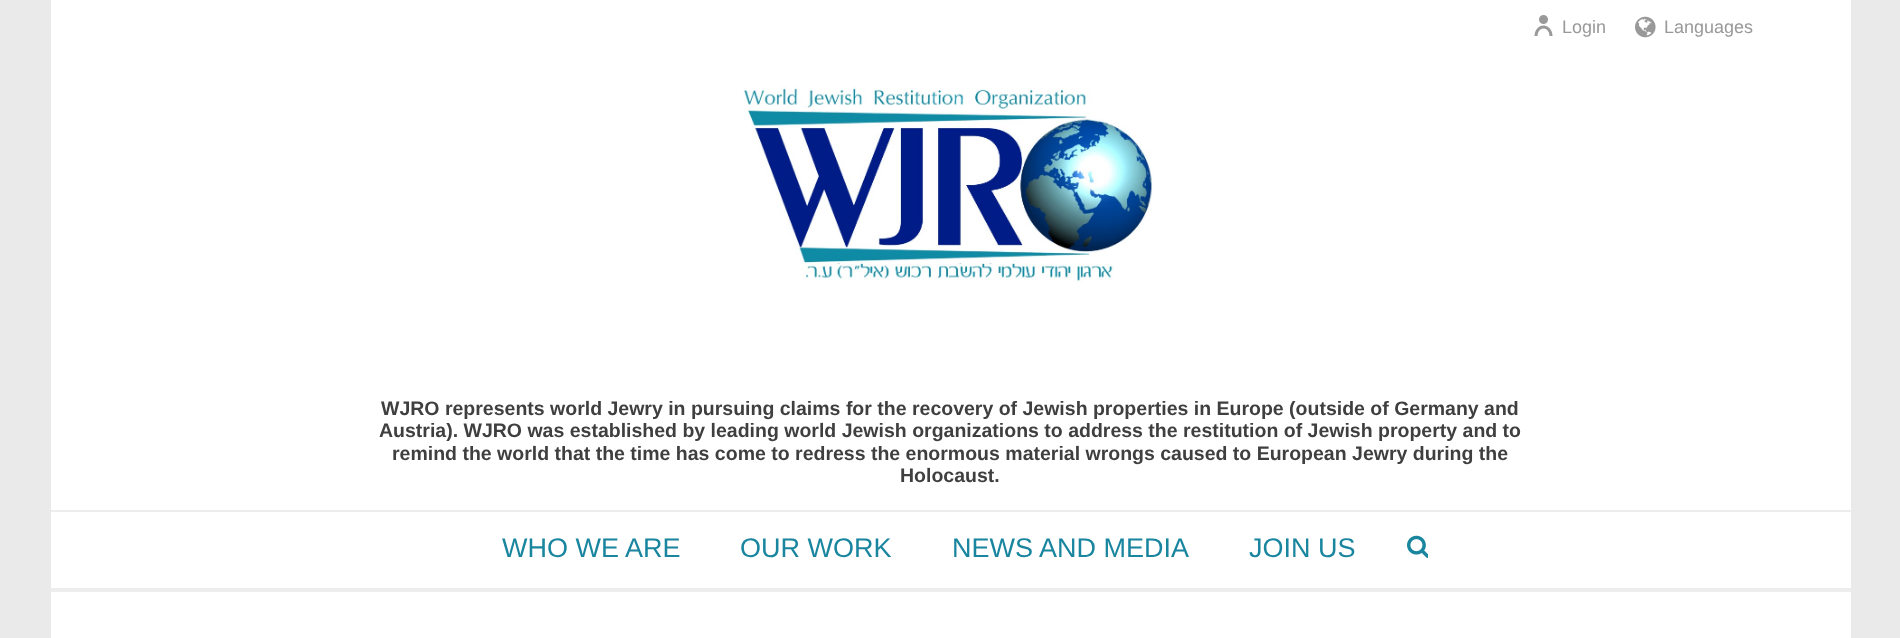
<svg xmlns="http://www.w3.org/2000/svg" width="1900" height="638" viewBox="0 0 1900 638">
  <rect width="100%" height="100%" fill="rgb(234,234,234)"/>
  <rect x="51" y="588" width="1800" height="4" fill="rgb(237,237,237)"/>
  <rect x="51" y="0" width="1800" height="588" fill="rgb(255,255,255)"/>
  <image x="1534" y="15" width="19" height="21" href="pic1.png"/>
  <text x="1562" y="33" font-family="Liberation Sans" font-size="18" fill="rgb(153,153,153)">Login</text>
  <image x="1635" y="16" width="21" height="22" href="pic2.png"/>
  <text x="1664" y="33" font-family="Liberation Sans" font-size="18" fill="rgb(153,153,153)">Languages</text>
  <image x="743" y="86" width="410" height="197" href="pic3.png"/>
  <g font-family="Liberation Sans" font-size="19.5" font-weight="bold" fill="rgb(63,63,63)">
    <text x="381" y="415">WJRO represents world Jewry in pursuing claims for the recovery of Jewish properties in Europe (outside of Germany and</text>
    <text x="379" y="437">Austria). WJRO was established by leading world Jewish organizations to address the restitution of Jewish property and to</text>
    <text x="392" y="460">remind the world that the time has come to redress the enormous material wrongs caused to European Jewry during the</text>
    <text x="900" y="482">Holocaust.</text>
  </g>
  <rect x="51" y="510" width="1800" height="2" fill="rgb(237,237,237)"/>
  <g font-family="Liberation Sans" font-size="27" fill="rgb(25,133,159)">
    <text x="502" y="557">WHO WE ARE</text>
    <text x="740" y="557">OUR WORK</text>
    <text x="952" y="557">NEWS AND MEDIA</text>
    <text x="1249" y="557">JOIN US</text>
  </g>
  <image x="1407" y="535" width="21" height="23" href="pic4.png"/>
  <rect x="51" y="592" width="1800" height="46" fill="rgb(255,255,255)"/>
</svg>
